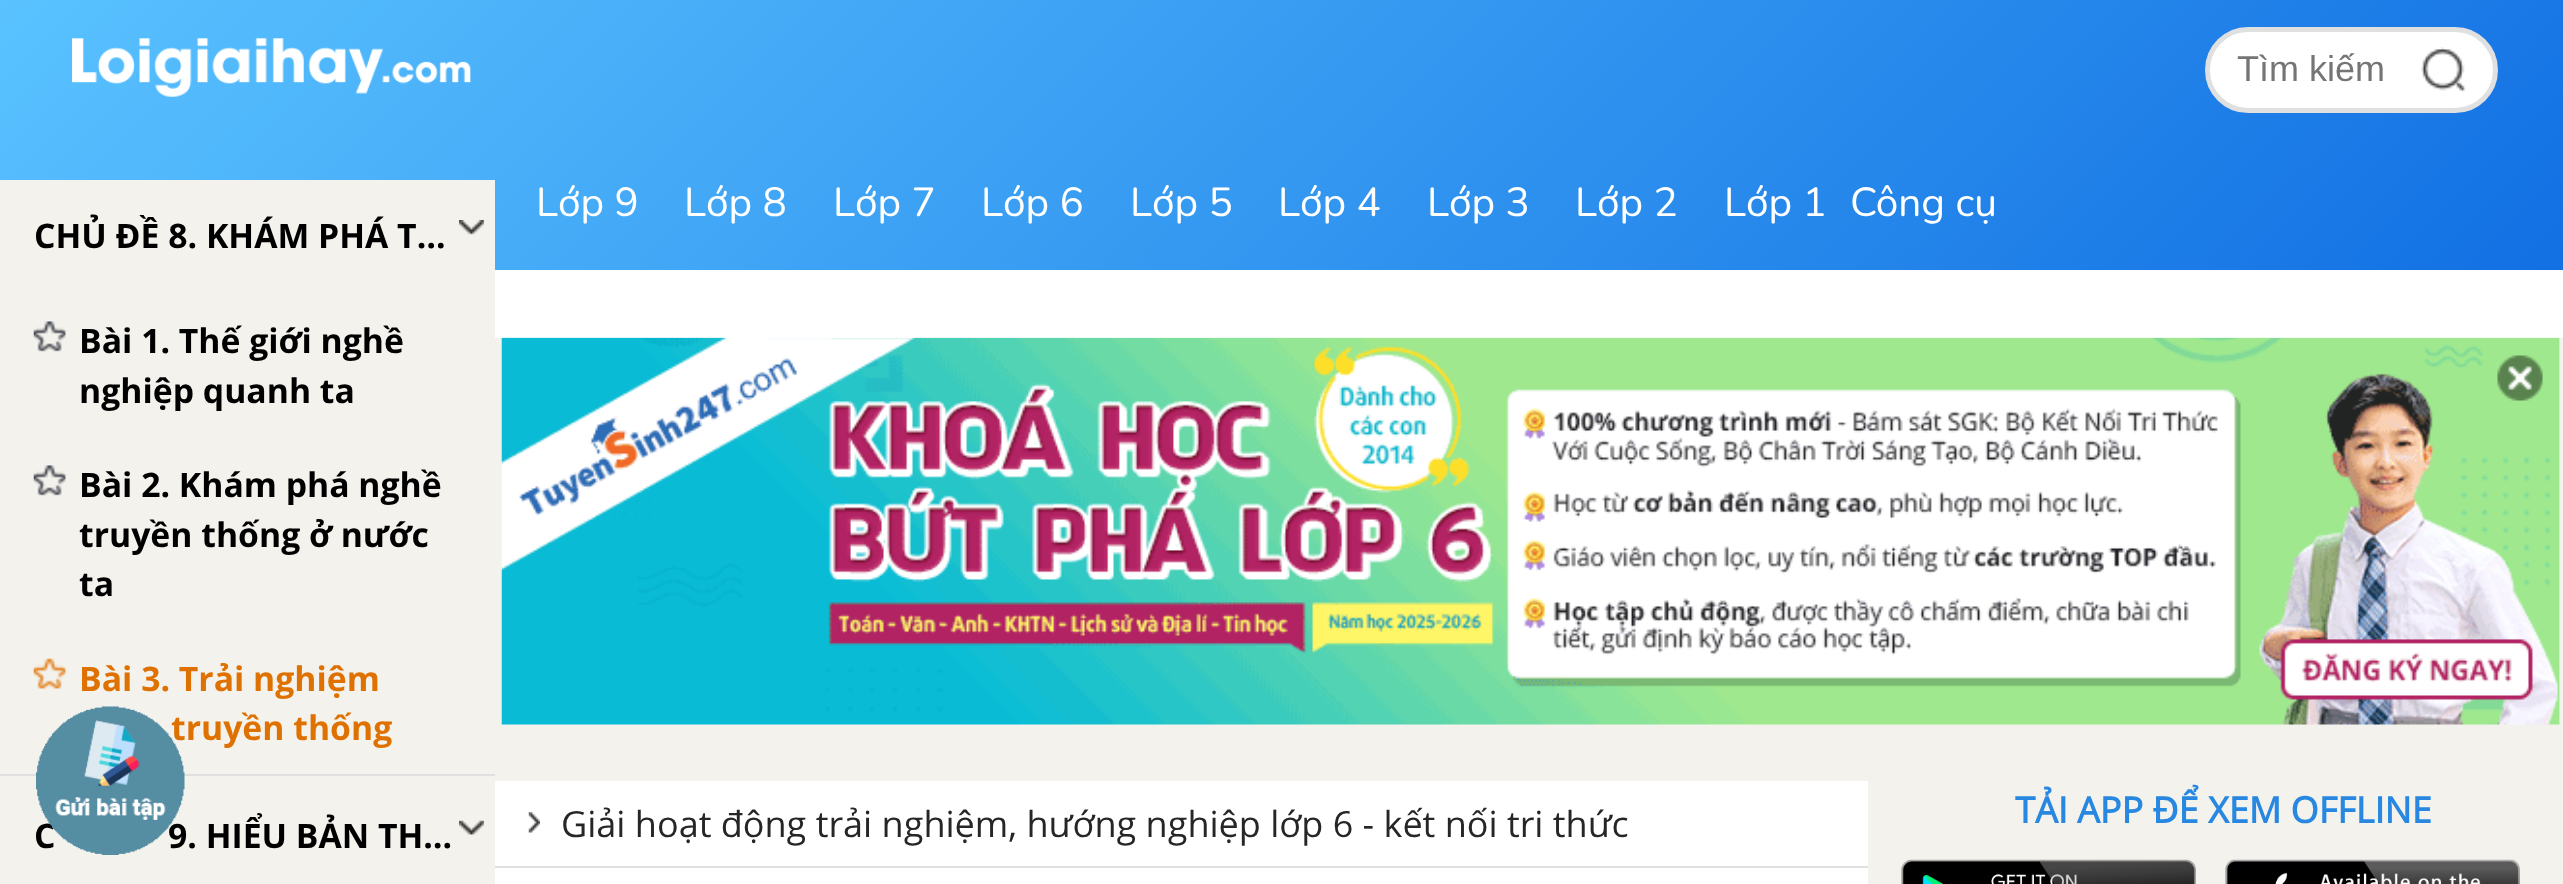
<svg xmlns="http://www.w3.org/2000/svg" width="2563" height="884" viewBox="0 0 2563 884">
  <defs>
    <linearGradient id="g1" gradientUnits="userSpaceOnUse" x1="1991" y1="844" x2="574" y2="-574"><stop offset="0" stop-color="rgb(18,112,227)"/><stop offset="1" stop-color="rgb(89,194,255)"/></linearGradient>
  </defs>
  <rect width="100%" height="100%" fill="rgb(255,255,255)"/>
  <rect x="0" y="0" width="2563" height="270" fill="url(#g1)"/>
  <image x="72" y="38" width="399" height="59" href="pic1.png"/>
  <rect x="2207.5" y="29.5" width="288" height="81" rx="40.5" fill="rgb(255,255,255)" stroke="rgb(224,224,224)" stroke-width="5"/>
  <text x="2237" y="81" font-family="Liberation Sans" font-size="36" fill="rgb(117,117,117)">Tìm kiếm</text>
  <image x="2421" y="47" width="45" height="45" href="pic2.png"/>
  <g font-family="Nunito" font-size="40.5" fill="rgb(255,255,255)">
    <text x="536" y="216">Lớp 9</text>
    <text x="684" y="216">Lớp 8</text>
    <text x="833" y="216">Lớp 7</text>
    <text x="981" y="216">Lớp 6</text>
    <text x="1130" y="216">Lớp 5</text>
    <text x="1278" y="216">Lớp 4</text>
    <text x="1427" y="216">Lớp 3</text>
    <text x="1575" y="216">Lớp 2</text>
    <text x="1724" y="216">Lớp 1</text>
    <text x="1850" y="216">Công cụ</text>
  </g>
  <rect x="495" y="338" width="2068" height="546" fill="rgb(244,242,236)"/>
  <rect x="0" y="180" width="495" height="704" fill="rgb(244,242,236)"/>
  <rect x="0" y="774" width="495" height="2" fill="rgb(224,224,224)"/>
  <text x="34" y="248" font-family="'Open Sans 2'" font-size="33.75" font-weight="bold" fill="rgb(0,0,0)">CHỦ ĐỀ 8. KHÁM PHÁ T…</text>
  <image x="459" y="220" width="25" height="15" href="pic3.png"/>
  <image x="33" y="321" width="33" height="31" href="pic4.png"/>
  <g font-family="'Open Sans 2'" font-size="33.75" font-weight="bold" fill="rgb(0,0,0)">
    <text>
      <tspan x="79" y="353">Bài 1. Thế giới nghề</tspan>
      <tspan x="79" y="403">nghiệp quanh ta</tspan>
    </text>
  </g>
  <image x="33" y="465" width="33" height="31" href="pic5.png"/>
  <g font-family="'Open Sans 2'" font-size="33.75" font-weight="bold" fill="rgb(0,0,0)">
    <text>
      <tspan x="79" y="497">Bài 2. Khám phá nghề</tspan>
      <tspan x="79" y="547">truyền thống ở nước</tspan>
      <tspan x="79" y="596">ta</tspan>
    </text>
  </g>
  <image x="33" y="658" width="33" height="31" href="pic6.png"/>
  <g font-family="'Open Sans 2'" font-size="33.75" font-weight="bold" fill="rgb(223,113,0)">
    <text x="79" y="691">Bài 3. Trải nghiệm</text>
    <text x="171" y="740">truyền thống</text>
  </g>
  <g font-family="'Open Sans 2'" font-size="33.75" font-weight="bold" fill="rgb(0,0,0)">
    <text x="34" y="848">C</text>
    <text x="168" y="848">9. HIỂU BẢN TH…</text>
  </g>
  <image x="459" y="820" width="25" height="15" href="pic7.png"/>
  <image x="501" y="337" width="2059" height="388" href="pic8.png"/>
  <image x="2497" y="355" width="46" height="46" href="pic9.png"/>
  <rect x="495" y="781" width="1373" height="103" fill="rgb(255,255,255)"/>
  <rect x="495" y="866" width="1373" height="2" fill="rgb(224,224,224)"/>
  <image x="528" y="812" width="12" height="21" href="pic10.png"/>
  <text x="561" y="837" font-family="Open Sans" font-size="36" fill="rgb(38,38,38)">Giải hoạt động trải nghiệm, hướng nghiệp lớp 6 - kết nối tri thức</text>
  <text x="2015" y="823" font-family="Open Sans" font-size="36" font-weight="bold" fill="rgb(40,136,225)">TẢI APP ĐỂ XEM OFFLINE</text>
  <image x="1901" y="859" width="295" height="25" href="pic11.png"/>
  <image x="2225" y="859" width="295" height="25" href="pic12.png"/>
  <image x="36" y="706" width="149" height="149" href="pic13.png"/>
</svg>
